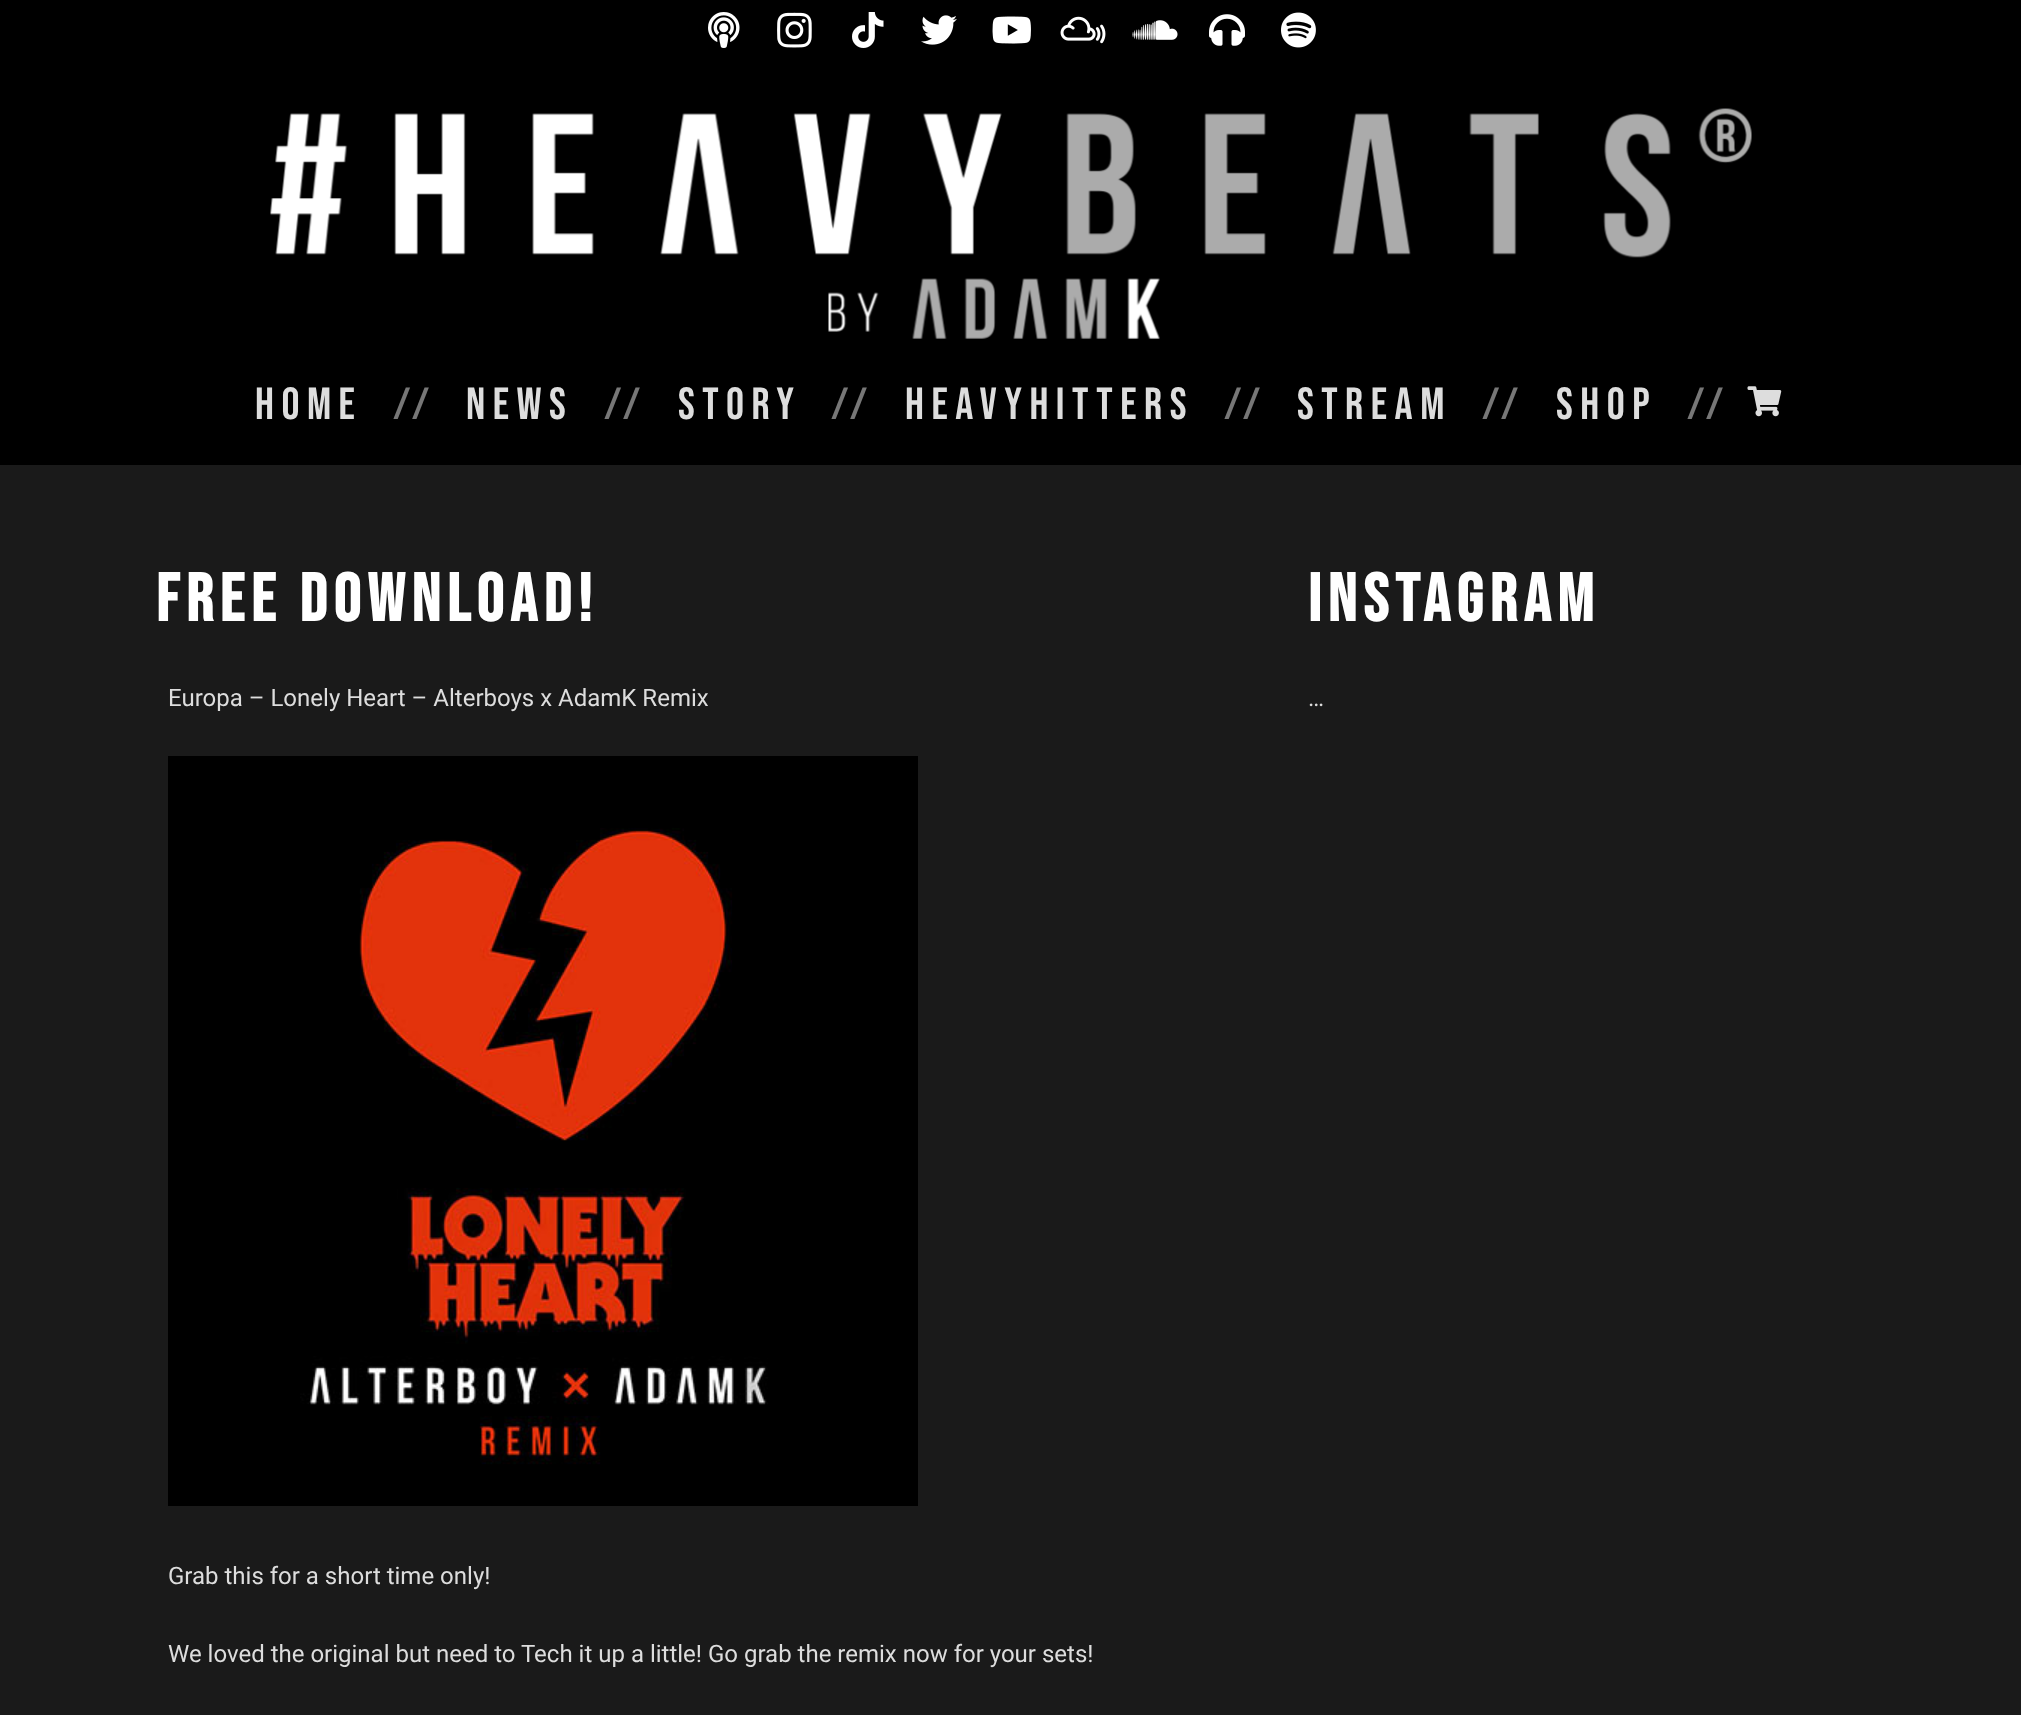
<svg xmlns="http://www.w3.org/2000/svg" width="2021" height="1715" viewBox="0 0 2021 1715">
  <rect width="100%" height="100%" fill="rgb(26,26,26)"/>
  <rect x="0" y="0" width="2021" height="465" fill="rgb(0,0,0)"/>
  <image x="708" y="12" width="32" height="36" href="pic1.png"/>
  <image x="777" y="12" width="35" height="36" href="pic2.png"/>
  <image x="852" y="12" width="32" height="36" href="pic3.png"/>
  <image x="921" y="15" width="36" height="30" href="pic4.png"/>
  <image x="992" y="16" width="39" height="28" href="pic5.png"/>
  <image x="1060" y="16" width="46" height="28" href="pic6.png"/>
  <image x="1132" y="20" width="46" height="20" href="pic7.png"/>
  <image x="1209" y="14" width="36" height="32" href="pic8.png"/>
  <image x="1281" y="12" width="35" height="36" href="pic9.png"/>
  <image x="270" y="108" width="1482" height="231" href="pic10.png"/>
  <text x="255" y="419" font-family="Bebas Neue" font-size="45" letter-spacing="7.5" fill="rgb(221,221,221)">Home</text>
  <text x="393" y="419" font-family="Bebas Neue" font-size="45" letter-spacing="7.5" fill="rgb(119,119,119)">//</text>
  <text x="466" y="419" font-family="Bebas Neue" font-size="45" letter-spacing="7.5" fill="rgb(221,221,221)">News</text>
  <text x="604" y="419" font-family="Bebas Neue" font-size="45" letter-spacing="7.5" fill="rgb(119,119,119)">//</text>
  <text x="678" y="419" font-family="Bebas Neue" font-size="45" letter-spacing="7.5" fill="rgb(221,221,221)">Story</text>
  <text x="831" y="419" font-family="Bebas Neue" font-size="45" letter-spacing="7.5" fill="rgb(119,119,119)">//</text>
  <text x="905" y="419" font-family="Bebas Neue" font-size="45" letter-spacing="7.5" fill="rgb(221,221,221)">HeavyHitters</text>
  <text x="1224" y="419" font-family="Bebas Neue" font-size="45" letter-spacing="7.5" fill="rgb(119,119,119)">//</text>
  <text x="1297" y="419" font-family="Bebas Neue" font-size="45" letter-spacing="7.5" fill="rgb(221,221,221)">Stream</text>
  <text x="1482" y="419" font-family="Bebas Neue" font-size="45" letter-spacing="7.5" fill="rgb(119,119,119)">//</text>
  <text x="1556" y="419" font-family="Bebas Neue" font-size="45" letter-spacing="7.5" fill="rgb(221,221,221)">Shop</text>
  <text x="1687" y="419" font-family="Bebas Neue" font-size="45" letter-spacing="7.5" fill="rgb(119,119,119)">//</text>
  <image x="1747" y="386" width="35" height="31" href="pic11.png"/>
  <text x="156" y="621" font-family="Bebas Neue" font-size="67.25" font-weight="bold" letter-spacing="6.75" fill="rgb(255,255,255)">Free Download!</text>
  <text x="168" y="706" font-family="Roboto" font-size="24" fill="rgb(221,221,221)">Europa – Lonely Heart – Alterboys x AdamK Remix</text>
  <image x="168" y="756" width="750" height="750" href="pic12.png"/>
  <g font-family="Roboto" font-size="24" fill="rgb(221,221,221)">
    <text x="168" y="1584">Grab this for a short time only!</text>
    <text x="168" y="1662">We loved the original but need to Tech it up a little! Go grab the remix now for your sets!</text>
  </g>
  <text x="1308" y="621" font-family="Bebas Neue" font-size="67.25" font-weight="bold" letter-spacing="6.75" fill="rgb(255,255,255)">Instagram</text>
  <text x="1308" y="706" font-family="Roboto" font-size="24" fill="rgb(221,221,221)">…</text>
</svg>
